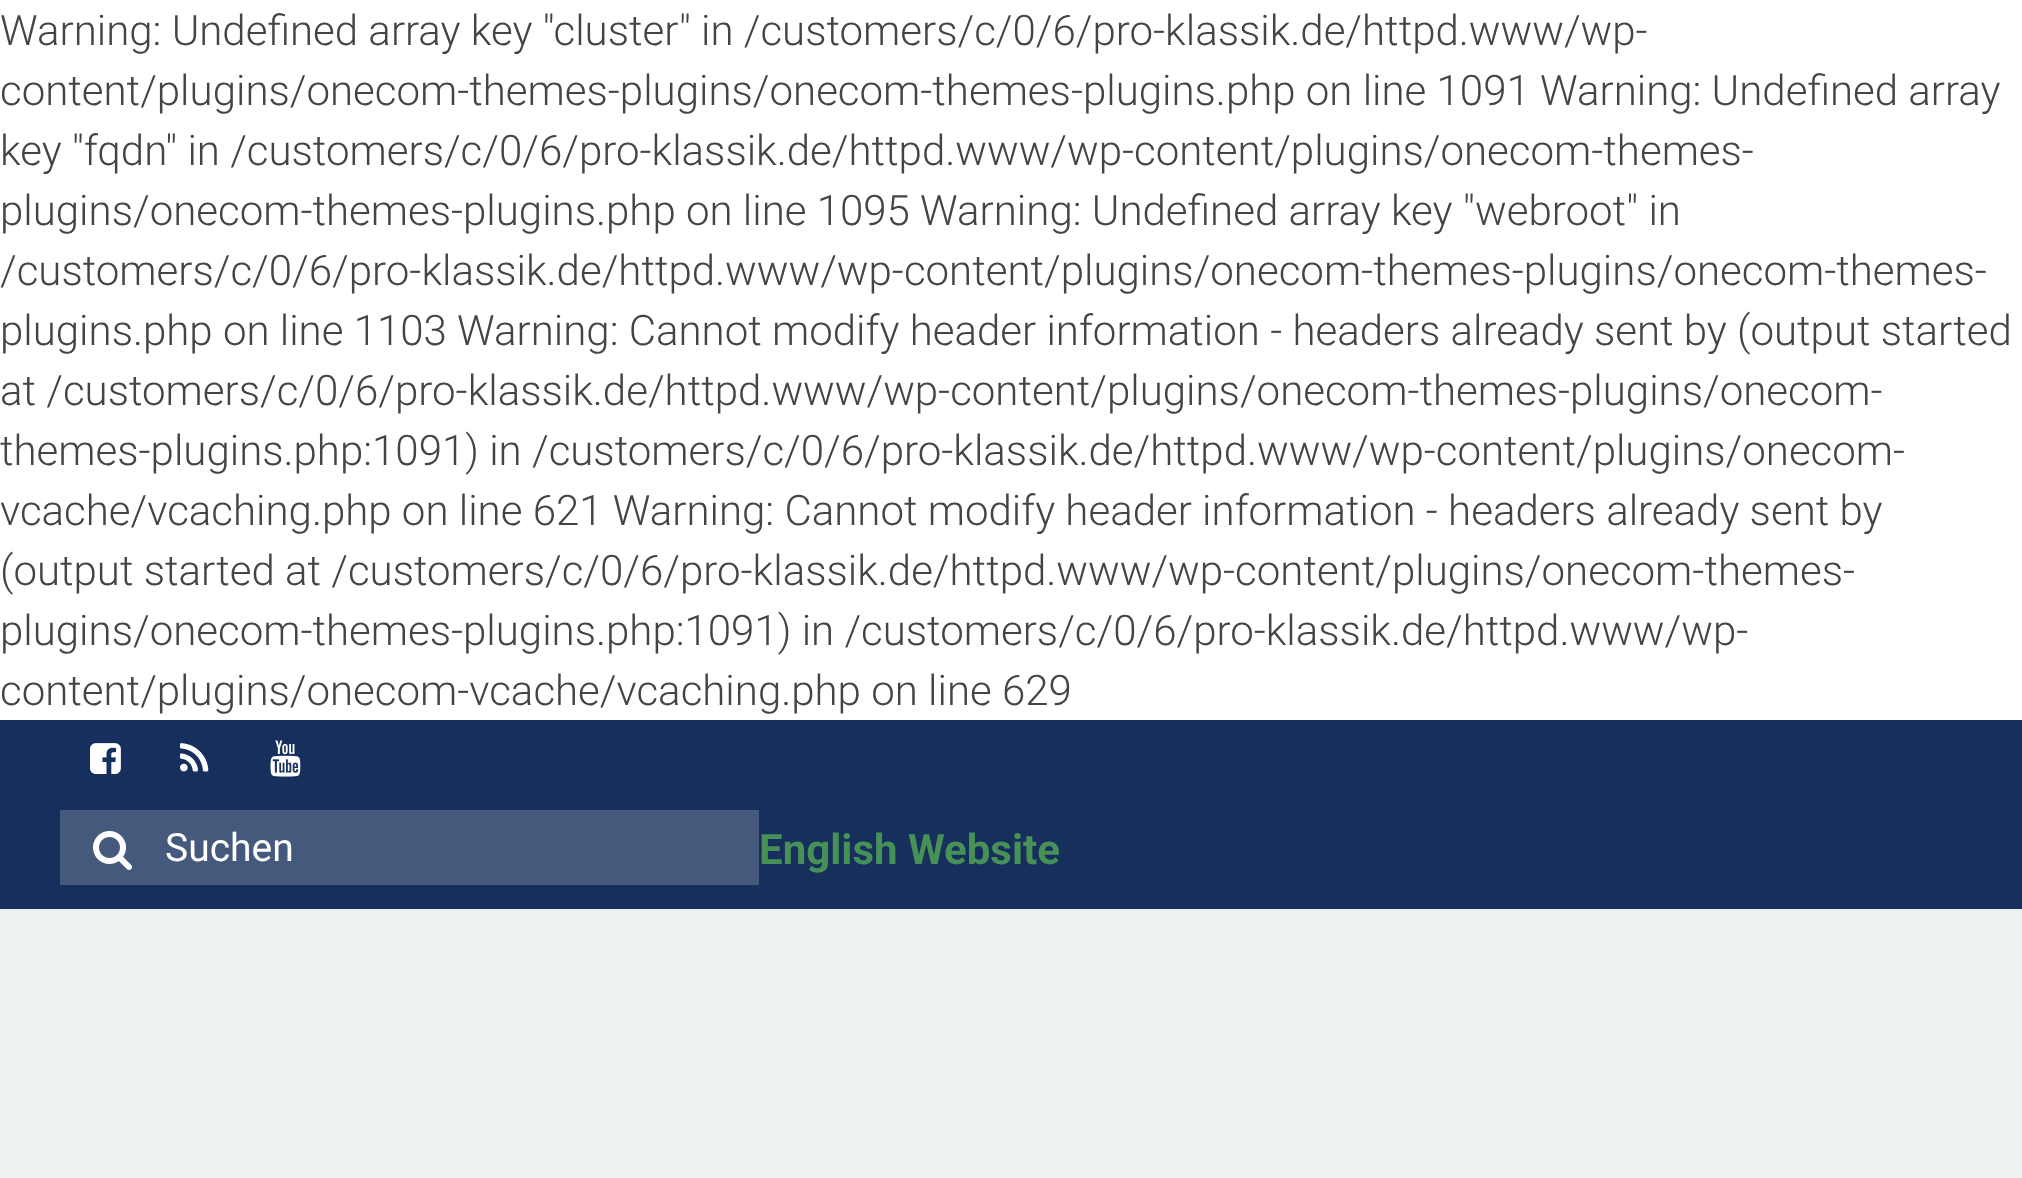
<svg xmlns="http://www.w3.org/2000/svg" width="2022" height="1178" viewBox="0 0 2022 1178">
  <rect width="100%" height="100%" fill="rgb(255,255,255)"/>
  <g font-family="Roboto" font-size="42" font-weight="300" fill="rgb(68,68,68)">
    <text>
      <tspan x="0" y="45">Warning: Undefined array key "cluster" in /customers/c/0/6/pro-klassik.de/httpd.www/wp-</tspan>
      <tspan x="0" y="105">content/plugins/onecom-themes-plugins/onecom-themes-plugins.php on line 1091 Warning: Undefined array</tspan>
      <tspan x="0" y="165">key "fqdn" in /customers/c/0/6/pro-klassik.de/httpd.www/wp-content/plugins/onecom-themes-</tspan>
      <tspan x="0" y="225">plugins/onecom-themes-plugins.php on line 1095 Warning: Undefined array key "webroot" in</tspan>
      <tspan x="0" y="285">/customers/c/0/6/pro-klassik.de/httpd.www/wp-content/plugins/onecom-themes-plugins/onecom-themes-</tspan>
      <tspan x="0" y="345">plugins.php on line 1103 Warning: Cannot modify header information - headers already sent by (output started</tspan>
      <tspan x="0" y="405">at /customers/c/0/6/pro-klassik.de/httpd.www/wp-content/plugins/onecom-themes-plugins/onecom-</tspan>
      <tspan x="0" y="465">themes-plugins.php:1091) in /customers/c/0/6/pro-klassik.de/httpd.www/wp-content/plugins/onecom-</tspan>
      <tspan x="0" y="525">vcache/vcaching.php on line 621 Warning: Cannot modify header information - headers already sent by</tspan>
      <tspan x="0" y="585">(output started at /customers/c/0/6/pro-klassik.de/httpd.www/wp-content/plugins/onecom-themes-</tspan>
      <tspan x="0" y="645">plugins/onecom-themes-plugins.php:1091) in /customers/c/0/6/pro-klassik.de/httpd.www/wp-</tspan>
      <tspan x="0" y="705">content/plugins/onecom-vcache/vcaching.php on line 629</tspan>
    </text>
  </g>
  <rect x="0" y="909" width="2022" height="269" fill="rgb(237,241,242)"/>
  <rect x="0" y="720" width="2022" height="189" fill="rgb(23,47,93)"/>
  <image x="90" y="743" width="31" height="31" href="pic1.png"/>
  <image x="180" y="743" width="29" height="29" href="pic2.png"/>
  <image x="270" y="740" width="31" height="37" href="pic3.png"/>
  <rect x="60" y="810" width="699" height="75" fill="rgb(69,89,125)"/>
  <image x="93" y="831" width="39" height="39" href="pic4.png"/>
  <text x="165" y="861" font-family="Roboto" font-size="39" fill="rgb(255,255,255)">Suchen</text>
  <text x="759" y="864" font-family="Roboto" font-size="42" font-weight="bold" fill="rgb(71,145,86)">English Website</text>
</svg>
